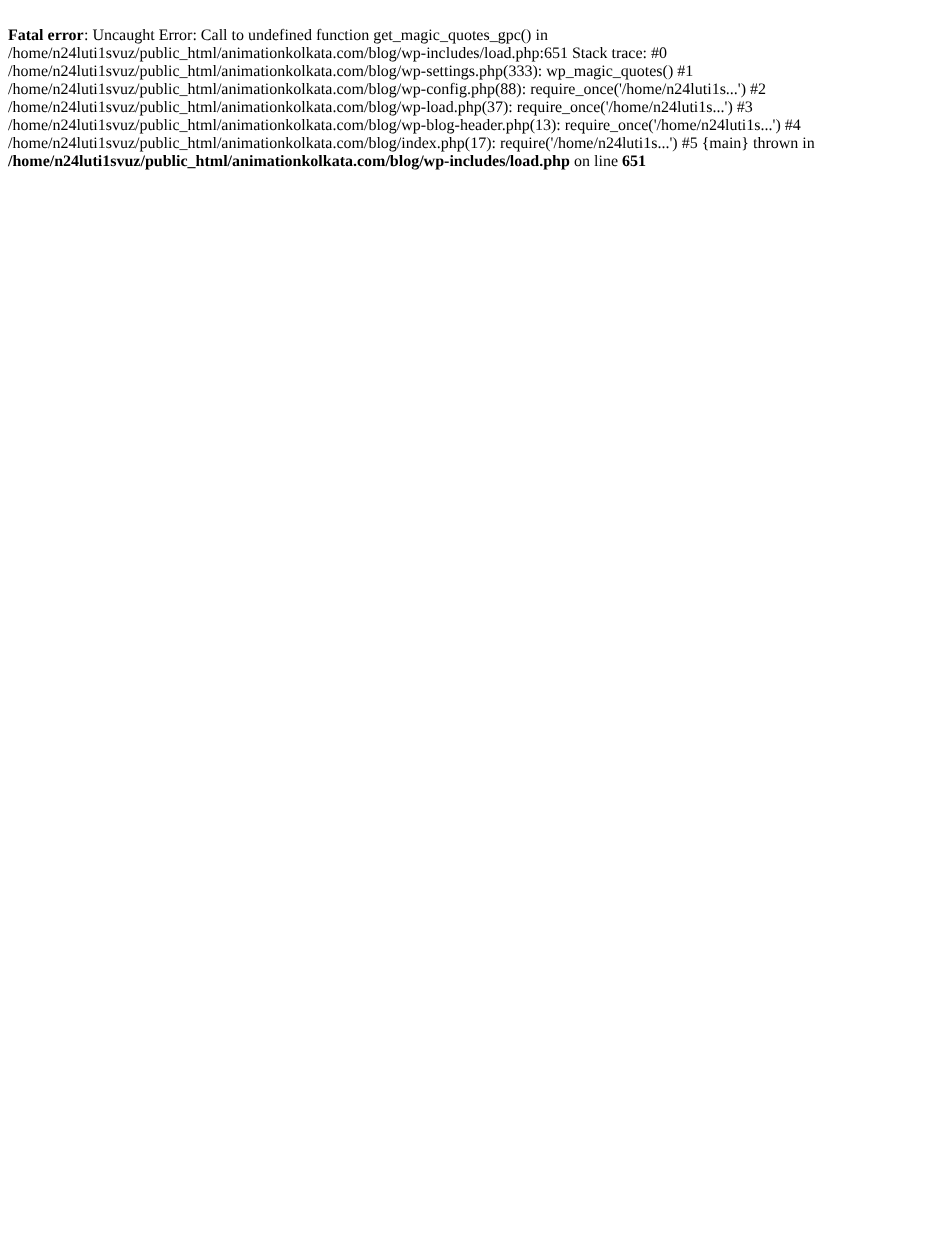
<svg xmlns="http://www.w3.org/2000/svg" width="935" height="1254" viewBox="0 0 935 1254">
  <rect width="100%" height="100%" fill="rgb(255,255,255)"/>
  <text x="8" y="40" font-family="Liberation Serif" font-size="16" font-weight="bold" fill="rgb(0,0,0)">Fatal error</text>
  <g font-family="Liberation Serif" font-size="16" fill="rgb(0,0,0)">
    <text x="84" y="40">: Uncaught Error: Call to undefined function get_magic_quotes_gpc() in</text>
    <text>
      <tspan x="8" y="58">/home/n24luti1svuz/public_html/animationkolkata.com/blog/wp-includes/load.php:651 Stack trace: #0</tspan>
      <tspan x="8" y="76">/home/n24luti1svuz/public_html/animationkolkata.com/blog/wp-settings.php(333): wp_magic_quotes() #1</tspan>
      <tspan x="8" y="94">/home/n24luti1svuz/public_html/animationkolkata.com/blog/wp-config.php(88): require_once('/home/n24luti1s...') #2</tspan>
      <tspan x="8" y="112">/home/n24luti1svuz/public_html/animationkolkata.com/blog/wp-load.php(37): require_once('/home/n24luti1s...') #3</tspan>
      <tspan x="8" y="130">/home/n24luti1svuz/public_html/animationkolkata.com/blog/wp-blog-header.php(13): require_once('/home/n24luti1s...') #4</tspan>
      <tspan x="8" y="148">/home/n24luti1svuz/public_html/animationkolkata.com/blog/index.php(17): require('/home/n24luti1s...') #5 {main} thrown in</tspan>
    </text>
  </g>
  <text x="8" y="166" font-family="Liberation Serif" font-size="16" font-weight="bold" fill="rgb(0,0,0)">/home/n24luti1svuz/public_html/animationkolkata.com/blog/wp-includes/load.php</text>
  <text x="574" y="166" font-family="Liberation Serif" font-size="16" fill="rgb(0,0,0)">on line</text>
  <text x="622" y="166" font-family="Liberation Serif" font-size="16" font-weight="bold" fill="rgb(0,0,0)">651</text>
</svg>
